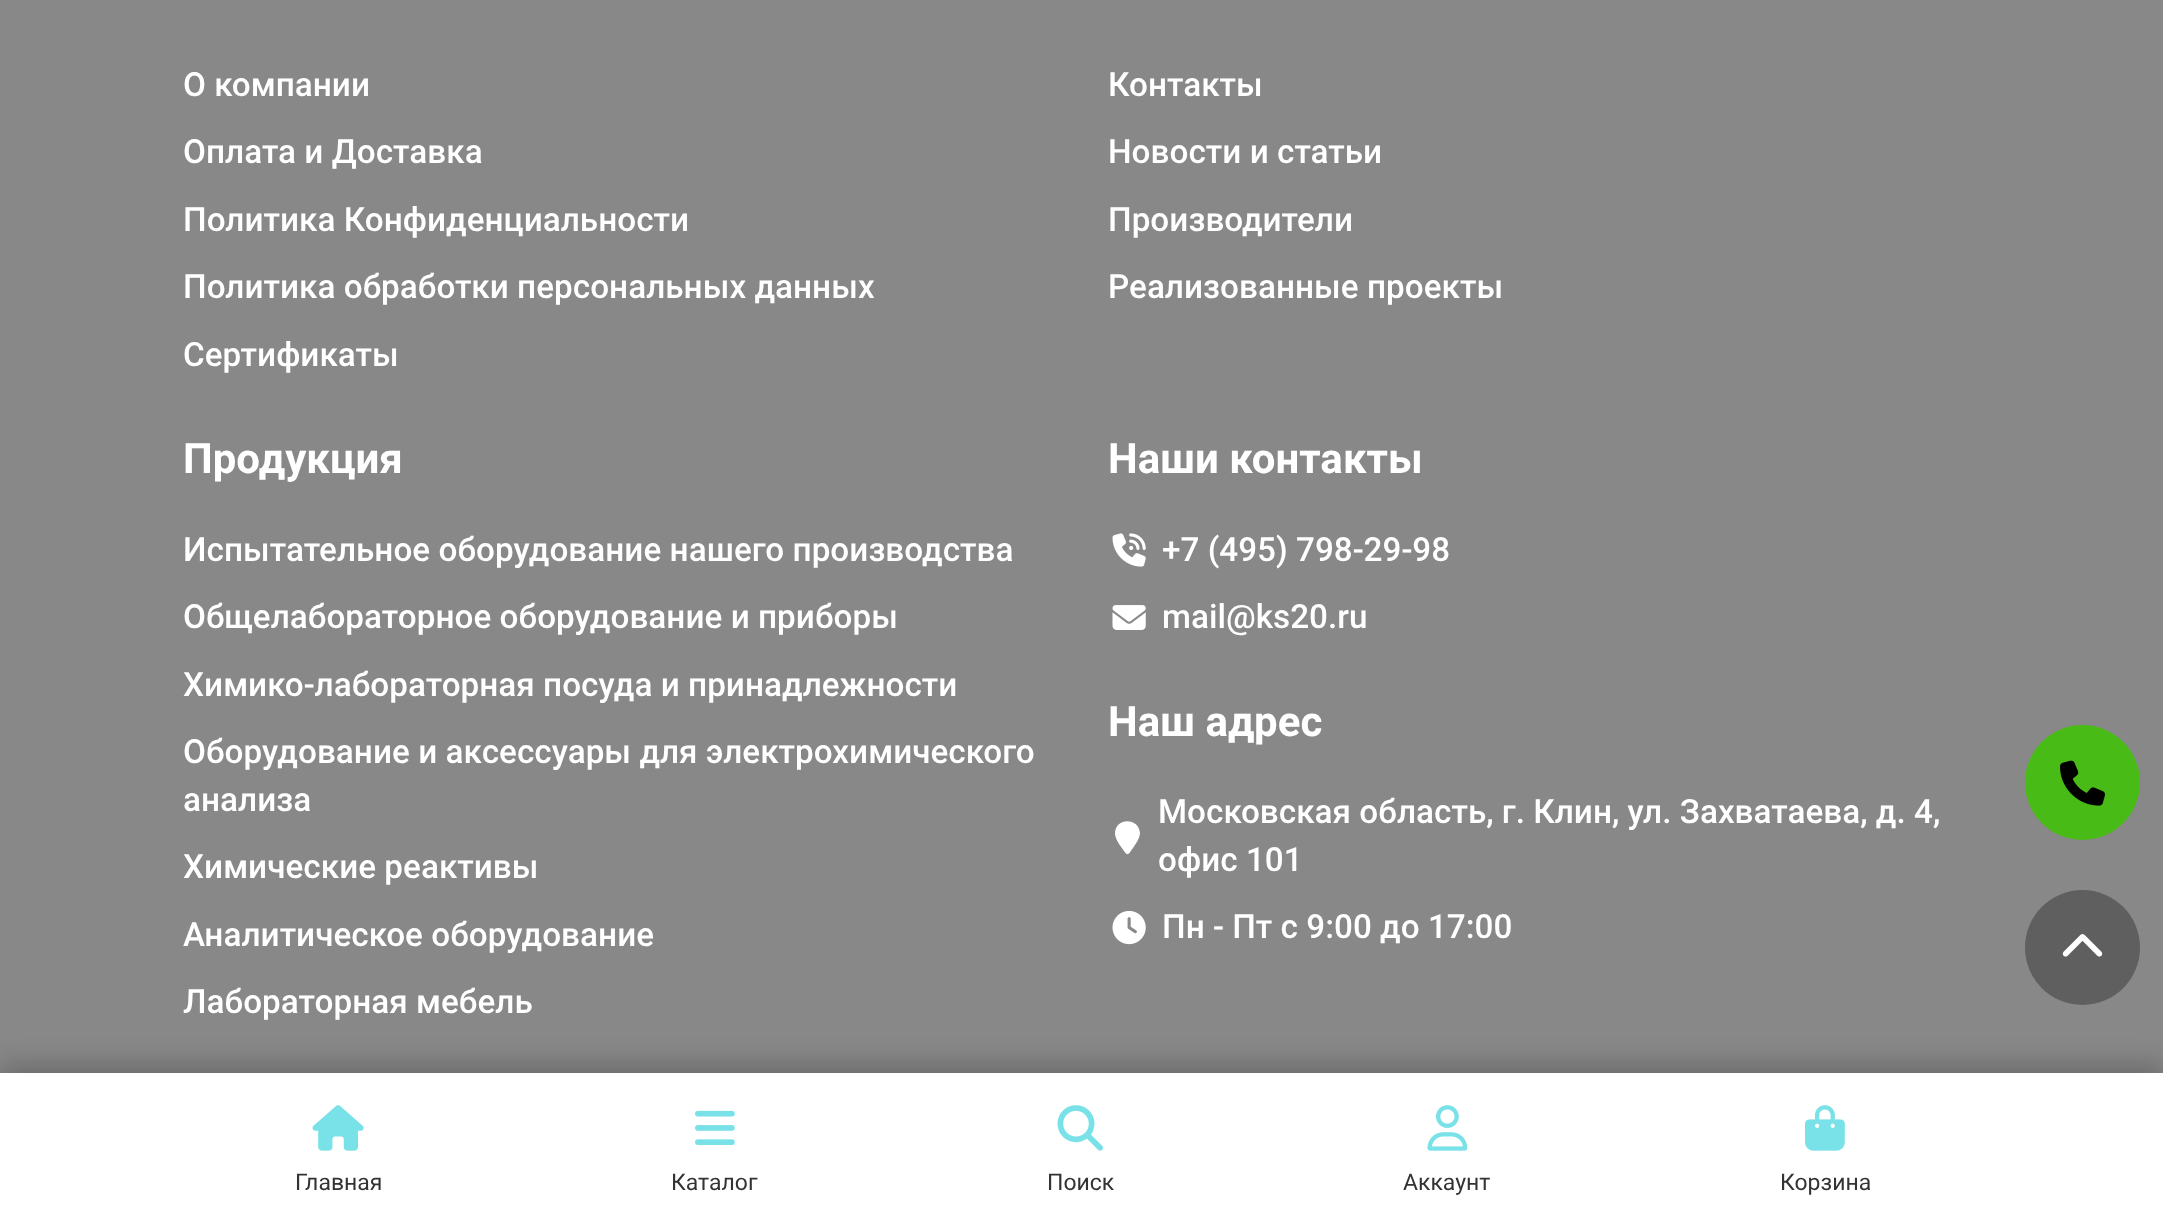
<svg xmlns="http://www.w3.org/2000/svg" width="2163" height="1228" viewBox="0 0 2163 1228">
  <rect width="100%" height="100%" fill="rgb(136,136,136)"/>
  <g font-family="Roboto" font-size="33.25" font-weight="500" fill="rgb(255,255,255)">
    <text x="183" y="96">О компании</text>
    <text x="183" y="163">Оплата и Доставка</text>
    <text x="183" y="231">Политика Конфиденциальности</text>
    <text x="183" y="298">Политика обработки персональных данных</text>
    <text x="183" y="366">Сертификаты</text>
    <text x="1108" y="96">Контакты</text>
    <text x="1108" y="163">Новости и статьи</text>
    <text x="1108" y="231">Производители</text>
    <text x="1108" y="298">Реализованные проекты</text>
  </g>
  <text x="183" y="473" font-family="Roboto" font-size="42" font-weight="bold" fill="rgb(255,255,255)">Продукция</text>
  <g font-family="Roboto" font-size="33.25" font-weight="500" fill="rgb(255,255,255)">
    <text x="183" y="561">Испытательное оборудование нашего производства</text>
    <text x="183" y="628">Общелабораторное оборудование и приборы</text>
    <text x="183" y="696">Химико-лабораторная посуда и принадлежности</text>
    <text>
      <tspan x="183" y="763">Оборудование и аксессуары для электрохимического</tspan>
      <tspan x="183" y="811">анализа</tspan>
    </text>
    <text x="183" y="878">Химические реактивы</text>
    <text x="183" y="946">Аналитическое оборудование</text>
    <text x="183" y="1013">Лабораторная мебель</text>
  </g>
  <text x="1108" y="473" font-family="Roboto" font-size="42" font-weight="bold" fill="rgb(255,255,255)">Наши контакты</text>
  <image x="1112" y="533" width="34" height="34" href="pic1.png"/>
  <text x="1162" y="561" font-family="Roboto" font-size="33.25" font-weight="500" fill="rgb(255,255,255)">+7 (495) 798-29-98</text>
  <image x="1112" y="605" width="34" height="25" href="pic2.png"/>
  <text x="1162" y="628" font-family="Roboto" font-size="33.25" font-weight="500" fill="rgb(255,255,255)">mail@ks20.ru</text>
  <text x="1108" y="736" font-family="Roboto" font-size="42" font-weight="bold" fill="rgb(255,255,255)">Наш адрес</text>
  <path d="M1140 833.5C1139.5 838 1136.5 843 1134 846.5C1127.5 856 1128 857 1121.5 847.5C1119 844 1115 838 1115 833.5C1115 817 1139.5 817 1140 833.5Z" fill="rgb(255,255,255)"/>
  <g font-family="Roboto" font-size="33.25" font-weight="500" fill="rgb(255,255,255)">
    <text>
      <tspan x="1158" y="823">Московская область, г. Клин, ул. Захватаева, д. 4,</tspan>
      <tspan x="1158" y="871">офис 101</tspan>
    </text>
  </g>
  <image x="1112" y="910" width="34" height="35" href="pic3.png"/>
  <text x="1162" y="938" font-family="Roboto" font-size="33.25" font-weight="500" fill="rgb(255,255,255)">Пн - Пт с 9:00 до 17:00</text>
  <circle cx="2082.5" cy="782.5" r="57.5" fill="rgb(73,187,23)"/>
  <image x="2060" y="760" width="45" height="46" href="pic4.png"/>
  <circle cx="2082.5" cy="947.5" r="57.5" fill="rgb(95,95,95)"/>
  <image x="2062" y="934" width="41" height="23" href="pic5.png"/>
  <rect x="0" y="1063" width="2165" height="157" fill="rgba(0,0,0,0.2)" filter="blur(12.5px)"/>
  <rect x="0" y="1073" width="2163" height="155" fill="rgb(255,255,255)"/>
  <image x="312" y="1105" width="52" height="46" href="pic6.png"/>
  <text x="295" y="1190" font-family="Roboto" font-size="23" fill="rgb(51,51,51)">Главная</text>
  <image x="695" y="1110" width="40" height="35" href="pic7.png"/>
  <text x="671" y="1190" font-family="Roboto" font-size="23" fill="rgb(51,51,51)">Каталог</text>
  <image x="1057" y="1105" width="46" height="46" href="pic8.png"/>
  <text x="1047" y="1190" font-family="Roboto" font-size="23" fill="rgb(51,51,51)">Поиск</text>
  <image x="1427" y="1105" width="41" height="46" href="pic9.png"/>
  <text x="1403" y="1190" font-family="Roboto" font-size="23" fill="rgb(51,51,51)">Аккаунт</text>
  <image x="1805" y="1105" width="40" height="46" href="pic10.png"/>
  <text x="1780" y="1190" font-family="Roboto" font-size="23" fill="rgb(51,51,51)">Корзина</text>
</svg>
